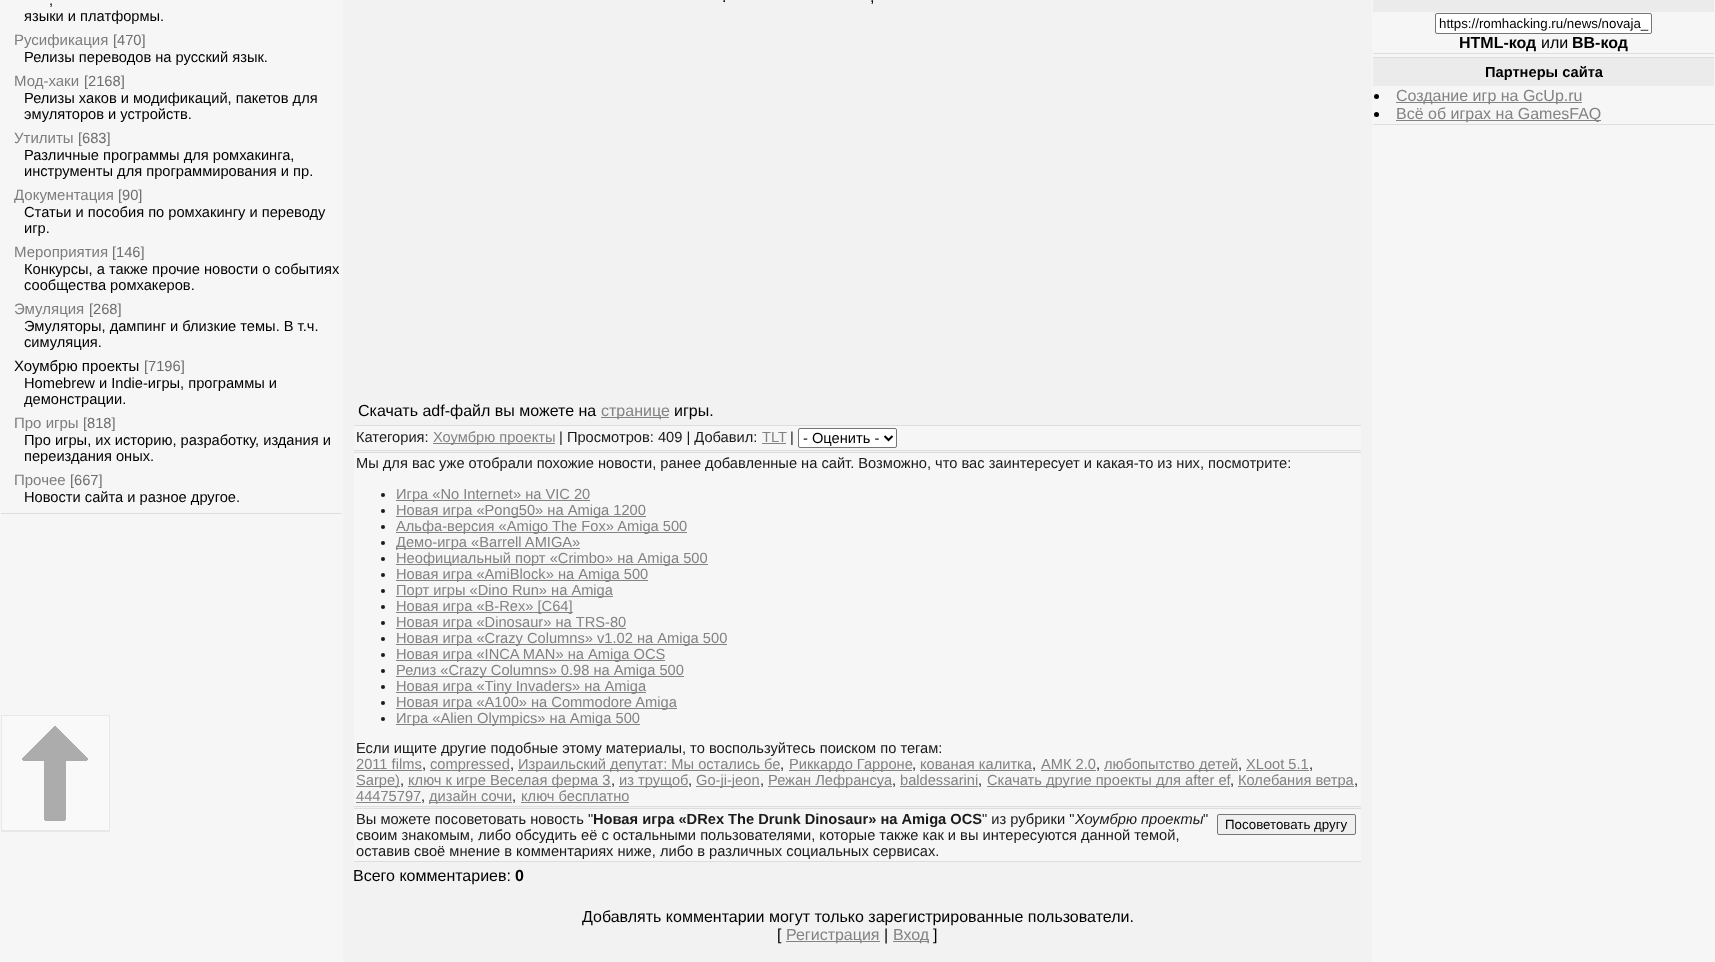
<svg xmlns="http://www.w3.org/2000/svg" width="1715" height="962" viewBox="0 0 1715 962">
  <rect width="100%" height="100%" fill="rgb(242,242,242)"/>
  <rect x="0" y="0" width="343" height="962" fill="rgb(246,246,246)"/>
  <rect x="1" y="513" width="341" height="1" fill="rgb(221,221,221)"/>
  <g font-family="Liberation Sans" font-size="14.67" fill="rgb(0,0,0)">
    <text x="49" y="5">,</text>
    <text x="24" y="21">языки и платформы.</text>
  </g>
  <text x="14" y="45" font-family="Liberation Sans" font-size="15" fill="rgb(125,125,125)">Русификация</text>
  <text x="113" y="45" font-family="Liberation Sans" font-size="14.67" fill="rgb(110,110,110)">[470]</text>
  <text x="24" y="62" font-family="Liberation Sans" font-size="14.67" fill="rgb(0,0,0)">Релизы переводов на русский язык.</text>
  <text x="14" y="86" font-family="Liberation Sans" font-size="15" fill="rgb(125,125,125)">Мод-хаки</text>
  <text x="84" y="86" font-family="Liberation Sans" font-size="14.67" fill="rgb(110,110,110)">[2168]</text>
  <g font-family="Liberation Sans" font-size="14.67" fill="rgb(0,0,0)">
    <text>
      <tspan x="24" y="103">Релизы хаков и модификаций, пакетов для</tspan>
      <tspan x="24" y="119">эмуляторов и устройств.</tspan>
    </text>
  </g>
  <text x="14" y="143" font-family="Liberation Sans" font-size="15" fill="rgb(125,125,125)">Утилиты</text>
  <text x="78" y="143" font-family="Liberation Sans" font-size="14.67" fill="rgb(110,110,110)">[683]</text>
  <g font-family="Liberation Sans" font-size="14.67" fill="rgb(0,0,0)">
    <text>
      <tspan x="24" y="160">Различные программы для ромхакинга,</tspan>
      <tspan x="24" y="176">инструменты для программирования и пр.</tspan>
    </text>
  </g>
  <text x="14" y="200" font-family="Liberation Sans" font-size="15" fill="rgb(125,125,125)">Документация</text>
  <text x="118" y="200" font-family="Liberation Sans" font-size="14.67" fill="rgb(110,110,110)">[90]</text>
  <g font-family="Liberation Sans" font-size="14.67" fill="rgb(0,0,0)">
    <text>
      <tspan x="24" y="217">Статьи и пособия по ромхакингу и переводу</tspan>
      <tspan x="24" y="233">игр.</tspan>
    </text>
  </g>
  <text x="14" y="257" font-family="Liberation Sans" font-size="15" fill="rgb(125,125,125)">Мероприятия</text>
  <text x="112" y="257" font-family="Liberation Sans" font-size="14.67" fill="rgb(110,110,110)">[146]</text>
  <g font-family="Liberation Sans" font-size="14.67" fill="rgb(0,0,0)">
    <text>
      <tspan x="24" y="274">Конкурсы, а также прочие новости о событиях</tspan>
      <tspan x="24" y="290">сообщества ромхакеров.</tspan>
    </text>
  </g>
  <text x="14" y="314" font-family="Liberation Sans" font-size="15" fill="rgb(125,125,125)">Эмуляция</text>
  <text x="89" y="314" font-family="Liberation Sans" font-size="14.67" fill="rgb(110,110,110)">[268]</text>
  <g font-family="Liberation Sans" font-size="14.67" fill="rgb(0,0,0)">
    <text>
      <tspan x="24" y="331">Эмуляторы, дампинг и близкие темы. В т.ч.</tspan>
      <tspan x="24" y="347">симуляция.</tspan>
    </text>
  </g>
  <text x="14" y="371" font-family="Liberation Sans" font-size="15" fill="rgb(0,0,0)">Хоумбрю проекты</text>
  <text x="144" y="371" font-family="Liberation Sans" font-size="14.67" fill="rgb(110,110,110)">[7196]</text>
  <g font-family="Liberation Sans" font-size="14.67" fill="rgb(0,0,0)">
    <text>
      <tspan x="24" y="388">Homebrew и Indie-игры, программы и</tspan>
      <tspan x="24" y="404">демонстрации.</tspan>
    </text>
  </g>
  <text x="14" y="428" font-family="Liberation Sans" font-size="15" fill="rgb(125,125,125)">Про игры</text>
  <text x="83" y="428" font-family="Liberation Sans" font-size="14.67" fill="rgb(110,110,110)">[818]</text>
  <g font-family="Liberation Sans" font-size="14.67" fill="rgb(0,0,0)">
    <text>
      <tspan x="24" y="445">Про игры, их историю, разработку, издания и</tspan>
      <tspan x="24" y="461">переиздания оных.</tspan>
    </text>
  </g>
  <text x="14" y="485" font-family="Liberation Sans" font-size="15" fill="rgb(125,125,125)">Прочее</text>
  <text x="70" y="485" font-family="Liberation Sans" font-size="14.67" fill="rgb(110,110,110)">[667]</text>
  <text x="24" y="502" font-family="Liberation Sans" font-size="14.67" fill="rgb(0,0,0)">Новости сайта и разное другое.</text>
  <g font-family="Liberation Sans" font-size="16" fill="rgb(0,0,0)">
    <text x="722" y="2">.</text>
    <text x="870" y="2">,</text>
    <text x="358" y="416">Скачать adf-файл вы можете на</text>
  </g>
  <rect x="601" y="417" width="68" height="1" fill="rgb(131,131,131)"/>
  <text x="601" y="416" font-family="Liberation Sans" font-size="16" fill="rgb(131,131,131)">странице</text>
  <text x="674" y="416" font-family="Liberation Sans" font-size="16" fill="rgb(0,0,0)">игры.</text>
  <rect x="354" y="426" width="1007" height="24" fill="rgb(246,246,246)"/>
  <rect x="354" y="425" width="1007" height="1" fill="rgb(221,221,221)"/>
  <rect x="354" y="450" width="1007" height="1" fill="rgb(221,221,221)"/>
  <text x="356" y="442" font-family="Liberation Sans" font-size="14.67" fill="rgb(26,26,26)">Категория:</text>
  <rect x="433" y="443" width="122" height="1" fill="rgb(131,131,131)"/>
  <text x="433" y="442" font-family="Liberation Sans" font-size="14.67" fill="rgb(131,131,131)">Хоумбрю проекты</text>
  <text x="559" y="442" font-family="Liberation Sans" font-size="14.67" fill="rgb(26,26,26)">| Просмотров: 409 | Добавил:</text>
  <text x="762" y="442" font-family="Liberation Sans" font-size="14.67" fill="rgb(131,131,131)">TLT</text>
  <rect x="762" y="443" width="24" height="1" fill="rgb(131,131,131)"/>
  <text x="790" y="442" font-family="Liberation Sans" font-size="14.67" fill="rgb(26,26,26)">|</text>
  <rect x="798.5" y="428.5" width="98" height="19" rx="1.5" fill="rgb(255,255,255)" stroke="rgb(118,118,118)"/>
  <path d="M884.5 436L888.5 440L892.5 436" fill="none" stroke="rgb(0,0,0)" stroke-width="2"/>
  <text x="803" y="443" font-family="Liberation Sans" font-size="14.67" fill="rgb(0,0,0)">- Оценить -</text>
  <rect x="354" y="453" width="1007" height="353" fill="rgb(246,246,246)"/>
  <rect x="354" y="452" width="1007" height="1" fill="rgb(221,221,221)"/>
  <rect x="354" y="806" width="1007" height="1" fill="rgb(221,221,221)"/>
  <text x="356" y="468" font-family="Liberation Sans" font-size="14.67" fill="rgb(26,26,26)">Мы для вас уже отобрали похожие новости, ранее добавленные на сайт. Возможно, что вас заинтересует и какая-то из них, посмотрите:</text>
  <circle cx="383" cy="495" r="2" fill="rgb(26,26,26)"/>
  <rect x="396" y="500" width="194" height="1" fill="rgb(131,131,131)"/>
  <text x="396" y="499" font-family="Liberation Sans" font-size="14.67" fill="rgb(131,131,131)">Игра «No Internet» на VIC 20</text>
  <circle cx="383" cy="511" r="2" fill="rgb(26,26,26)"/>
  <rect x="396" y="516" width="250" height="1" fill="rgb(131,131,131)"/>
  <text x="396" y="515" font-family="Liberation Sans" font-size="14.67" fill="rgb(131,131,131)">Новая игра «Pong50» на Amiga 1200</text>
  <circle cx="383" cy="527" r="2" fill="rgb(26,26,26)"/>
  <rect x="396" y="532" width="291" height="1" fill="rgb(131,131,131)"/>
  <text x="396" y="531" font-family="Liberation Sans" font-size="14.67" fill="rgb(131,131,131)">Альфа-версия «Amigo The Fox» Amiga 500</text>
  <circle cx="383" cy="543" r="2" fill="rgb(26,26,26)"/>
  <rect x="396" y="548" width="184" height="1" fill="rgb(131,131,131)"/>
  <text x="396" y="547" font-family="Liberation Sans" font-size="14.67" fill="rgb(131,131,131)">Демо-игра «Barrell AMIGA»</text>
  <circle cx="383" cy="559" r="2" fill="rgb(26,26,26)"/>
  <rect x="396" y="564" width="312" height="1" fill="rgb(131,131,131)"/>
  <text x="396" y="563" font-family="Liberation Sans" font-size="14.67" fill="rgb(131,131,131)">Неофициальный порт «Crimbo» на Amiga 500</text>
  <circle cx="383" cy="575" r="2" fill="rgb(26,26,26)"/>
  <rect x="396" y="580" width="252" height="1" fill="rgb(131,131,131)"/>
  <text x="396" y="579" font-family="Liberation Sans" font-size="14.67" fill="rgb(131,131,131)">Новая игра «AmiBlock» на Amiga 500</text>
  <circle cx="383" cy="591" r="2" fill="rgb(26,26,26)"/>
  <rect x="396" y="596" width="217" height="1" fill="rgb(131,131,131)"/>
  <text x="396" y="595" font-family="Liberation Sans" font-size="14.67" fill="rgb(131,131,131)">Порт игры «Dino Run» на Amiga</text>
  <circle cx="383" cy="607" r="2" fill="rgb(26,26,26)"/>
  <rect x="396" y="612" width="177" height="1" fill="rgb(131,131,131)"/>
  <text x="396" y="611" font-family="Liberation Sans" font-size="14.67" fill="rgb(131,131,131)">Новая игра «B-Rex» [C64]</text>
  <circle cx="383" cy="623" r="2" fill="rgb(26,26,26)"/>
  <rect x="396" y="628" width="230" height="1" fill="rgb(131,131,131)"/>
  <text x="396" y="627" font-family="Liberation Sans" font-size="14.67" fill="rgb(131,131,131)">Новая игра «Dinosaur» на TRS-80</text>
  <circle cx="383" cy="639" r="2" fill="rgb(26,26,26)"/>
  <rect x="396" y="644" width="331" height="1" fill="rgb(131,131,131)"/>
  <text x="396" y="643" font-family="Liberation Sans" font-size="14.67" fill="rgb(131,131,131)">Новая игра «Crazy Columns» v1.02 на Amiga 500</text>
  <circle cx="383" cy="655" r="2" fill="rgb(26,26,26)"/>
  <rect x="396" y="660" width="269" height="1" fill="rgb(131,131,131)"/>
  <text x="396" y="659" font-family="Liberation Sans" font-size="14.67" fill="rgb(131,131,131)">Новая игра «INCA MAN» на Amiga OCS</text>
  <circle cx="383" cy="671" r="2" fill="rgb(26,26,26)"/>
  <rect x="396" y="676" width="288" height="1" fill="rgb(131,131,131)"/>
  <text x="396" y="675" font-family="Liberation Sans" font-size="14.67" fill="rgb(131,131,131)">Релиз «Crazy Columns» 0.98 на Amiga 500</text>
  <circle cx="383" cy="687" r="2" fill="rgb(26,26,26)"/>
  <rect x="396" y="692" width="250" height="1" fill="rgb(131,131,131)"/>
  <text x="396" y="691" font-family="Liberation Sans" font-size="14.67" fill="rgb(131,131,131)">Новая игра «Tiny Invaders» на Amiga</text>
  <circle cx="383" cy="703" r="2" fill="rgb(26,26,26)"/>
  <rect x="396" y="708" width="281" height="1" fill="rgb(131,131,131)"/>
  <text x="396" y="707" font-family="Liberation Sans" font-size="14.67" fill="rgb(131,131,131)">Новая игра «A100» на Commodore Amiga</text>
  <circle cx="383" cy="719" r="2" fill="rgb(26,26,26)"/>
  <rect x="396" y="724" width="244" height="1" fill="rgb(131,131,131)"/>
  <text x="396" y="723" font-family="Liberation Sans" font-size="14.67" fill="rgb(131,131,131)">Игра «Alien Olympics» на Amiga 500</text>
  <text x="356" y="753" font-family="Liberation Sans" font-size="14.67" fill="rgb(26,26,26)">Если ищите другие подобные этому материалы, то воспользуйтесь поиском по тегам:</text>
  <text x="356" y="769" font-family="Liberation Sans" font-size="14.67" fill="rgb(131,131,131)">2011 films</text>
  <text x="422" y="769" font-family="Liberation Sans" font-size="14.67" fill="rgb(26,26,26)">,</text>
  <rect x="356" y="770" width="66" height="1" fill="rgb(131,131,131)"/>
  <rect x="430" y="770" width="80" height="1" fill="rgb(131,131,131)"/>
  <text x="430" y="769" font-family="Liberation Sans" font-size="14.67" fill="rgb(131,131,131)">compressed</text>
  <text x="510" y="769" font-family="Liberation Sans" font-size="14.67" fill="rgb(26,26,26)">,</text>
  <rect x="518" y="770" width="262" height="1" fill="rgb(131,131,131)"/>
  <text x="518" y="769" font-family="Liberation Sans" font-size="14.67" fill="rgb(131,131,131)">Израильский депутат: Мы остались бе</text>
  <text x="780" y="769" font-family="Liberation Sans" font-size="14.67" fill="rgb(26,26,26)">,</text>
  <rect x="789" y="770" width="123" height="1" fill="rgb(131,131,131)"/>
  <text x="789" y="769" font-family="Liberation Sans" font-size="14.67" fill="rgb(131,131,131)">Риккардо Гарроне</text>
  <text x="912" y="769" font-family="Liberation Sans" font-size="14.67" fill="rgb(26,26,26)">,</text>
  <text x="920" y="769" font-family="Liberation Sans" font-size="14.67" fill="rgb(131,131,131)">кованая калитка</text>
  <text x="1032" y="769" font-family="Liberation Sans" font-size="14.67" fill="rgb(26,26,26)">,</text>
  <rect x="920" y="770" width="112" height="1" fill="rgb(131,131,131)"/>
  <text x="1041" y="769" font-family="Liberation Sans" font-size="14.67" fill="rgb(131,131,131)">АМК 2.0</text>
  <text x="1096" y="769" font-family="Liberation Sans" font-size="14.67" fill="rgb(26,26,26)">,</text>
  <rect x="1041" y="770" width="55" height="1" fill="rgb(131,131,131)"/>
  <rect x="1104" y="770" width="134" height="1" fill="rgb(131,131,131)"/>
  <text x="1104" y="769" font-family="Liberation Sans" font-size="14.67" fill="rgb(131,131,131)">любопытство детей</text>
  <text x="1238" y="769" font-family="Liberation Sans" font-size="14.67" fill="rgb(26,26,26)">,</text>
  <text x="1246" y="769" font-family="Liberation Sans" font-size="14.67" fill="rgb(131,131,131)">XLoot 5.1</text>
  <text x="1309" y="769" font-family="Liberation Sans" font-size="14.67" fill="rgb(26,26,26)">,</text>
  <rect x="1246" y="770" width="63" height="1" fill="rgb(131,131,131)"/>
  <rect x="356" y="786" width="44" height="1" fill="rgb(131,131,131)"/>
  <text x="356" y="785" font-family="Liberation Sans" font-size="14.67" fill="rgb(131,131,131)">Sarpe)</text>
  <text x="400" y="785" font-family="Liberation Sans" font-size="14.67" fill="rgb(26,26,26)">,</text>
  <rect x="408" y="786" width="203" height="1" fill="rgb(131,131,131)"/>
  <text x="408" y="785" font-family="Liberation Sans" font-size="14.67" fill="rgb(131,131,131)">ключ к игре Веселая ферма 3</text>
  <text x="611" y="785" font-family="Liberation Sans" font-size="14.67" fill="rgb(26,26,26)">,</text>
  <rect x="619" y="786" width="69" height="1" fill="rgb(131,131,131)"/>
  <text x="619" y="785" font-family="Liberation Sans" font-size="14.67" fill="rgb(131,131,131)">из трущоб</text>
  <text x="688" y="785" font-family="Liberation Sans" font-size="14.67" fill="rgb(26,26,26)">,</text>
  <rect x="696" y="786" width="64" height="1" fill="rgb(131,131,131)"/>
  <text x="696" y="785" font-family="Liberation Sans" font-size="14.67" fill="rgb(131,131,131)">Go-ji-jeon</text>
  <text x="760" y="785" font-family="Liberation Sans" font-size="14.67" fill="rgb(26,26,26)">,</text>
  <rect x="768" y="786" width="124" height="1" fill="rgb(131,131,131)"/>
  <text x="768" y="785" font-family="Liberation Sans" font-size="14.67" fill="rgb(131,131,131)">Режан Лефрансуа</text>
  <text x="892" y="785" font-family="Liberation Sans" font-size="14.67" fill="rgb(26,26,26)">,</text>
  <text x="900" y="785" font-family="Liberation Sans" font-size="14.67" fill="rgb(131,131,131)">baldessarini</text>
  <text x="978" y="785" font-family="Liberation Sans" font-size="14.67" fill="rgb(26,26,26)">,</text>
  <rect x="900" y="786" width="78" height="1" fill="rgb(131,131,131)"/>
  <rect x="987" y="786" width="243" height="1" fill="rgb(131,131,131)"/>
  <text x="987" y="785" font-family="Liberation Sans" font-size="14.67" fill="rgb(131,131,131)">Скачать другие проекты для after ef</text>
  <text x="1230" y="785" font-family="Liberation Sans" font-size="14.67" fill="rgb(26,26,26)">,</text>
  <rect x="1238" y="786" width="116" height="1" fill="rgb(131,131,131)"/>
  <text x="1238" y="785" font-family="Liberation Sans" font-size="14.67" fill="rgb(131,131,131)">Колебания ветра</text>
  <text x="1354" y="785" font-family="Liberation Sans" font-size="14.67" fill="rgb(26,26,26)">,</text>
  <text x="356" y="801" font-family="Liberation Sans" font-size="14.67" fill="rgb(131,131,131)">44475797</text>
  <text x="421" y="801" font-family="Liberation Sans" font-size="14.67" fill="rgb(26,26,26)">,</text>
  <rect x="356" y="802" width="65" height="1" fill="rgb(131,131,131)"/>
  <rect x="429" y="802" width="83" height="1" fill="rgb(131,131,131)"/>
  <text x="429" y="801" font-family="Liberation Sans" font-size="14.67" fill="rgb(131,131,131)">дизайн сочи</text>
  <text x="512" y="801" font-family="Liberation Sans" font-size="14.67" fill="rgb(26,26,26)">,</text>
  <rect x="521" y="802" width="108" height="1" fill="rgb(131,131,131)"/>
  <text x="521" y="801" font-family="Liberation Sans" font-size="14.67" fill="rgb(131,131,131)">ключ бесплатно</text>
  <rect x="354" y="809" width="1007" height="52" fill="rgb(246,246,246)"/>
  <rect x="354" y="808" width="1007" height="1" fill="rgb(221,221,221)"/>
  <rect x="354" y="861" width="1007" height="1" fill="rgb(221,221,221)"/>
  <text x="356" y="824" font-family="Liberation Sans" font-size="14.67" fill="rgb(26,26,26)">Вы можете посоветовать новость "</text>
  <text x="593" y="824" font-family="Liberation Sans" font-size="14.67" font-weight="bold" fill="rgb(26,26,26)">Новая игра «DRex The Drunk Dinosaur» на Amiga OCS</text>
  <text x="982" y="824" font-family="Liberation Sans" font-size="14.67" fill="rgb(26,26,26)">" из рубрики "</text>
  <text x="1075" y="824" font-family="Liberation Sans" font-size="14.67" font-style="italic" fill="rgb(26,26,26)">Хоумбрю проекты</text>
  <text x="1203" y="824" font-family="Liberation Sans" font-size="14.67" fill="rgb(26,26,26)">"</text>
  <rect x="1217.5" y="814.5" width="138" height="20" rx="1.5" fill="rgb(239,239,239)" stroke="rgb(118,118,118)"/>
  <text x="1225" y="829" font-family="Liberation Sans" font-size="13.3" fill="rgb(0,0,0)">Посоветовать другу</text>
  <g font-family="Liberation Sans" font-size="14.67" fill="rgb(26,26,26)">
    <text>
      <tspan x="356" y="840">своим знакомым, либо обсудить её с остальными пользователями, которые также как и вы интересуются данной темой,</tspan>
      <tspan x="356" y="856">оставив своё мнение в комментариях ниже, либо в различных социальных сервисах.</tspan>
    </text>
  </g>
  <text x="353" y="881" font-family="Liberation Sans" font-size="16" fill="rgb(0,0,0)">Всего комментариев:</text>
  <text x="515" y="881" font-family="Liberation Sans" font-size="16" font-weight="bold" fill="rgb(0,0,0)">0</text>
  <g font-family="Liberation Sans" font-size="16" fill="rgb(0,0,0)">
    <text x="582" y="922">Добавлять комментарии могут только зарегистрированные пользователи.</text>
    <text x="777" y="940">[</text>
  </g>
  <rect x="786" y="941" width="94" height="1" fill="rgb(131,131,131)"/>
  <text x="786" y="940" font-family="Liberation Sans" font-size="16" fill="rgb(131,131,131)">Регистрация</text>
  <text x="884" y="940" font-family="Liberation Sans" font-size="16" fill="rgb(0,0,0)">|</text>
  <rect x="893" y="941" width="36" height="1" fill="rgb(131,131,131)"/>
  <text x="893" y="940" font-family="Liberation Sans" font-size="16" fill="rgb(131,131,131)">Вход</text>
  <text x="933" y="940" font-family="Liberation Sans" font-size="16" fill="rgb(0,0,0)">]</text>
  <rect x="1372" y="0" width="343" height="962" fill="rgb(246,246,246)"/>
  <rect x="1373" y="53" width="341" height="1" fill="rgb(221,221,221)"/>
  <rect x="1373" y="0" width="341" height="12" fill="rgb(235,235,235)"/>
  <rect x="1435.5" y="13.5" width="216" height="20" rx="1.5" fill="rgb(255,255,255)" stroke="rgb(118,118,118)"/>
  <text x="1439" y="28" font-family="Liberation Sans" font-size="13.3" fill="rgb(0,0,0)">https://romhacking.ru/news/novaja_</text>
  <text x="1459" y="48" font-family="Liberation Sans" font-size="16" font-weight="bold" fill="rgb(0,0,0)">HTML-код</text>
  <text x="1541" y="48" font-family="Liberation Sans" font-size="16" fill="rgb(0,0,0)">или</text>
  <text x="1572" y="48" font-family="Liberation Sans" font-size="16" font-weight="bold" fill="rgb(0,0,0)">BB-код</text>
  <rect x="1373" y="57" width="341" height="1" fill="rgb(221,221,221)"/>
  <rect x="1373" y="124" width="341" height="1" fill="rgb(221,221,221)"/>
  <rect x="1373" y="58" width="341" height="28" fill="rgb(235,235,235)"/>
  <text x="1485" y="77" font-family="Liberation Sans" font-size="14.67" font-weight="bold" fill="rgb(0,0,0)">Партнеры сайта</text>
  <circle cx="1376.5" cy="96.5" r="2.5" fill="rgb(0,0,0)"/>
  <rect x="1396" y="102" width="186" height="1" fill="rgb(131,131,131)"/>
  <text x="1396" y="101" font-family="Liberation Sans" font-size="16" fill="rgb(131,131,131)">Создание игр на GcUp.ru</text>
  <circle cx="1376.5" cy="114.5" r="2.5" fill="rgb(0,0,0)"/>
  <rect x="1396" y="120" width="205" height="1" fill="rgb(131,131,131)"/>
  <text x="1396" y="119" font-family="Liberation Sans" font-size="16" fill="rgb(131,131,131)">Всё об играх на GamesFAQ</text>
  <image x="1" y="715" width="109" height="117" href="pic1.png"/>
</svg>
